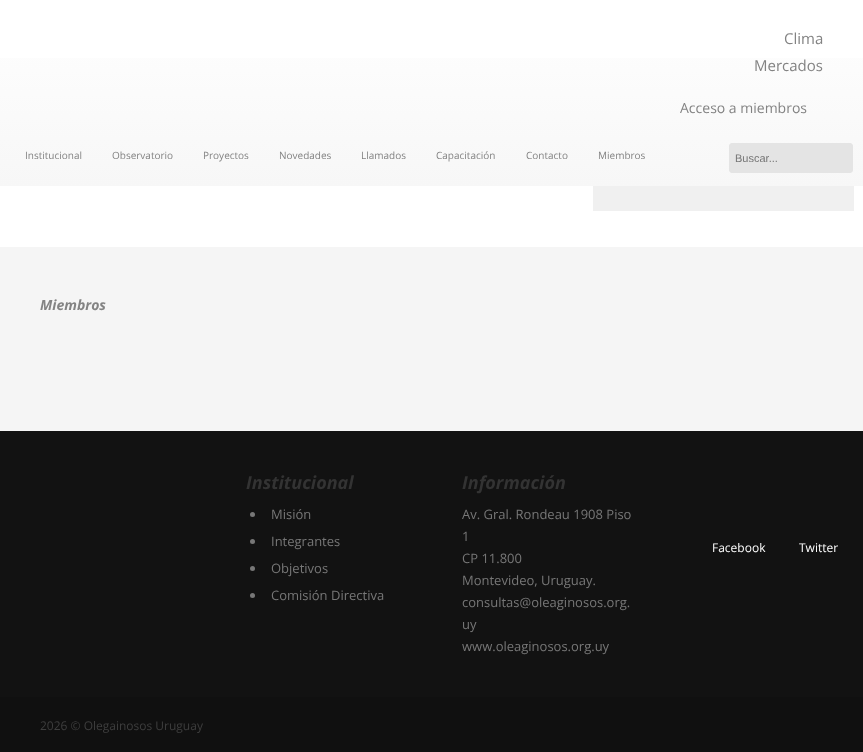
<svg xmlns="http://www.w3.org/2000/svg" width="863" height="752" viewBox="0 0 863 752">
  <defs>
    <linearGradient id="g1" gradientUnits="userSpaceOnUse" x1="432" y1="186" x2="432" y2="0"><stop offset="0" stop-color="rgb(247,247,247)"/><stop offset="1" stop-color="rgb(255,255,255)"/></linearGradient>
  </defs>
  <rect width="100%" height="100%" fill="rgb(255,255,255)"/>
  <rect x="0" y="58" width="863" height="128" fill="url(#g1)"/>
  <g font-family="Open Sans" font-size="15" fill="rgb(131,131,131)">
    <text x="784" y="44">Clima</text>
    <text x="754" y="71">Mercados</text>
  </g>
  <text x="680" y="113" font-family="Open Sans" font-size="14" fill="rgb(131,131,131)">Acceso a miembros</text>
  <g font-family="Open Sans" font-size="10" fill="rgb(131,131,131)">
    <text x="25" y="159">Institucional</text>
    <text x="112" y="159">Observatorio</text>
    <text x="203" y="159">Proyectos</text>
    <text x="279" y="159">Novedades</text>
    <text x="361" y="159">Llamados</text>
    <text x="436" y="159">Capacitación</text>
    <text x="526" y="159">Contacto</text>
    <text x="598" y="159">Miembros</text>
  </g>
  <rect x="729.5" y="143.5" width="123" height="29" rx="2.5" fill="rgb(228,228,228)" stroke="rgb(228,228,228)"/>
  <text x="735" y="162" font-family="Liberation Sans" font-size="11" fill="rgb(119,119,119)">Buscar...</text>
  <rect x="593" y="186" width="261" height="25" fill="rgb(240,240,240)"/>
  <rect x="0" y="247" width="863" height="184" fill="rgb(245,245,245)"/>
  <text x="40" y="310" font-family="Open Sans" font-size="14" font-weight="bold" font-style="italic" fill="rgb(131,131,131)">Miembros</text>
  <rect x="0" y="431" width="863" height="266" fill="rgb(18,18,18)"/>
  <text x="246" y="489" font-family="Open Sans" font-size="18" font-weight="bold" font-style="italic" fill="rgb(51,51,51)">Institucional</text>
  <circle cx="252.5" cy="514.5" r="2.5" fill="rgb(119,119,119)"/>
  <text x="271" y="519" font-family="Open Sans" font-size="13" fill="rgb(119,119,119)">Misión</text>
  <circle cx="252.5" cy="541.5" r="2.5" fill="rgb(119,119,119)"/>
  <text x="271" y="546" font-family="Open Sans" font-size="13" fill="rgb(119,119,119)">Integrantes</text>
  <circle cx="252.5" cy="568.5" r="2.5" fill="rgb(119,119,119)"/>
  <text x="271" y="573" font-family="Open Sans" font-size="13" fill="rgb(119,119,119)">Objetivos</text>
  <circle cx="252.5" cy="595.5" r="2.5" fill="rgb(119,119,119)"/>
  <text x="271" y="600" font-family="Open Sans" font-size="13" fill="rgb(119,119,119)">Comisión Directiva</text>
  <text x="462" y="489" font-family="Open Sans" font-size="18" font-weight="bold" font-style="italic" fill="rgb(51,51,51)">Información</text>
  <g font-family="Open Sans" font-size="13" fill="rgb(119,119,119)">
    <text>
      <tspan x="462" y="519">Av. Gral. Rondeau 1908 Piso</tspan>
      <tspan x="462" y="541">1</tspan>
      <tspan x="462" y="563">CP 11.800</tspan>
      <tspan x="462" y="585">Montevideo, Uruguay.</tspan>
      <tspan x="462" y="607">consultas@oleaginosos.org.</tspan>
      <tspan x="462" y="629">uy</tspan>
      <tspan x="462" y="651">www.oleaginosos.org.uy</tspan>
    </text>
  </g>
  <g font-family="Open Sans" font-size="12" fill="rgb(255,255,255)">
    <text x="712" y="552">Facebook</text>
    <text x="799" y="552">Twitter</text>
  </g>
  <rect x="0" y="697" width="863" height="55" fill="rgb(16,16,16)"/>
  <text x="40" y="730" font-family="Open Sans" font-size="12" fill="rgb(62,62,62)">2026 © Olegainosos Uruguay</text>
</svg>
